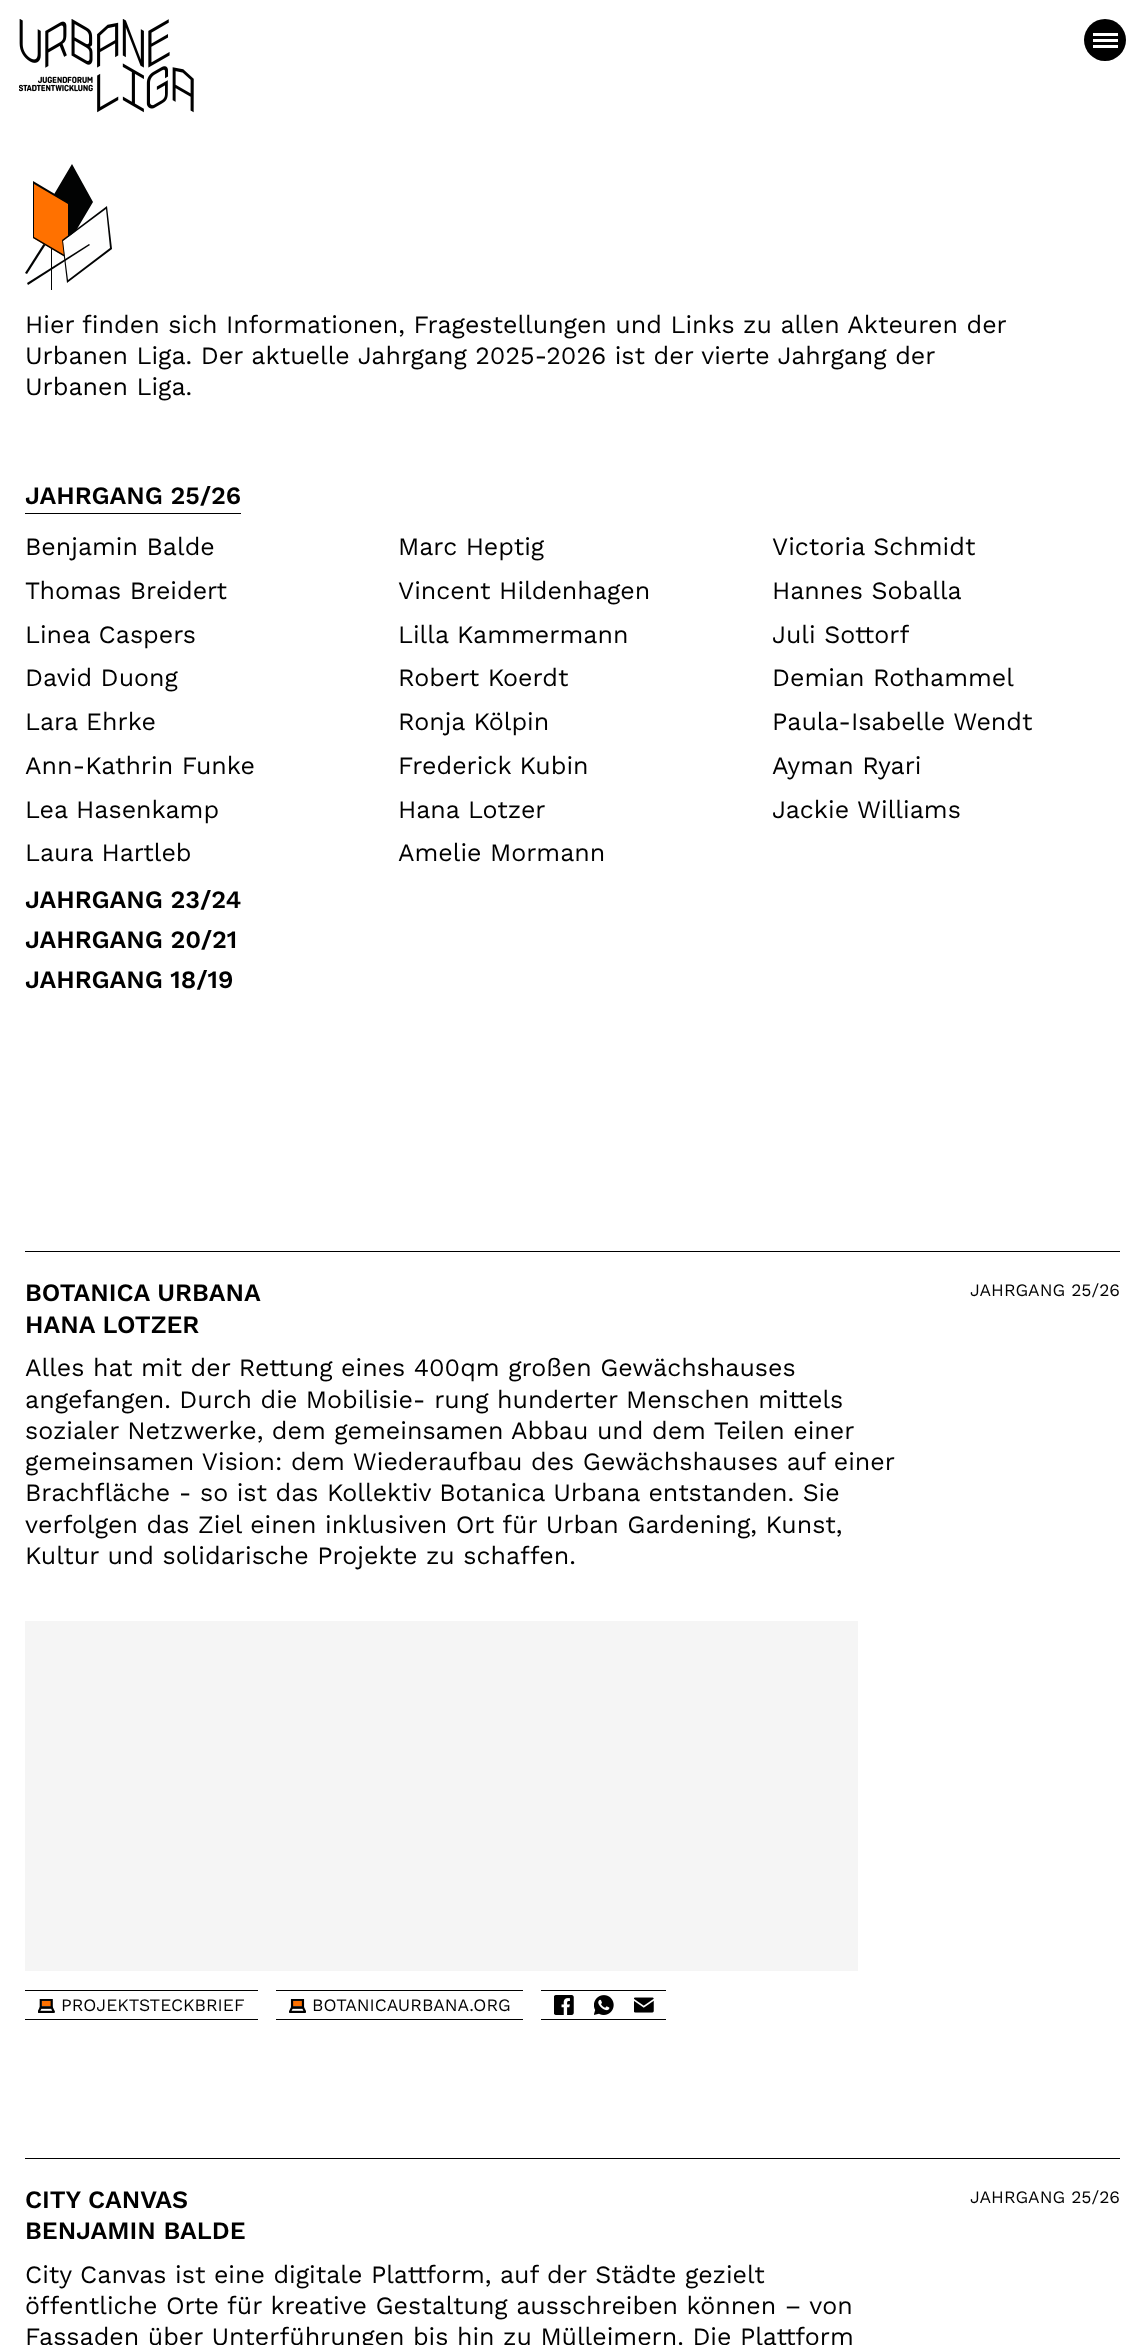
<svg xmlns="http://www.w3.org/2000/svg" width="1144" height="2345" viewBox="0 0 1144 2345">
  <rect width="100%" height="100%" fill="rgb(255,255,255)"/>
  <circle cx="1105" cy="40" r="21" fill="rgb(0,0,0)"/>
  <rect x="1093" y="33" width="25" height="3" fill="rgb(255,255,255)"/>
  <rect x="1093" y="39" width="25" height="3" fill="rgb(255,255,255)"/>
  <rect x="1093" y="45" width="25" height="3" fill="rgb(255,255,255)"/>
  <image x="19" y="19" width="175" height="94" href="pic1.png"/>
  <path d="M44 213L72 166L92 202L64 249Z" fill="rgb(2,3,3)"/>
  <path d="M72 164L93 202L64 251L43 213ZM45 213L64 247L91 202L72 168Z" fill="rgb(2,3,3)" fill-rule="evenodd"/>
  <path d="M25 273L67 207L69 208L27 274Z" fill="rgb(2,3,3)"/>
  <rect x="51" y="248" width="1" height="42" fill="rgb(2,3,3)"/>
  <path d="M33 238V183L69 203V259Z" fill="rgb(255,113,0)"/>
  <path d="M70 260V203L33 181V238ZM34 237V184L68 204V257Z" fill="rgb(2,3,3)" fill-rule="evenodd"/>
  <path d="M63 241L107 207L112 248L67 282Z" fill="rgb(254,254,254)"/>
  <path d="M62 240L107 206L112 249L67 283ZM63 241L68 280L110 248L106 209Z" fill="rgb(2,3,3)" fill-rule="evenodd"/>
  <path d="M27 283L28 285L90 245L89 244Z" fill="rgb(2,3,3)"/>
  <g font-family="Work Sans" font-size="25" fill="rgb(0,0,0)">
    <text>
      <tspan x="25" y="333">Hier finden sich Informationen, Fragestellungen und Links zu allen Akteuren der</tspan>
      <tspan x="25" y="364">Urbanen Liga. Der aktuelle Jahrgang 2025-2026 ist der vierte Jahrgang der</tspan>
      <tspan x="25" y="395">Urbanen Liga.</tspan>
    </text>
  </g>
  <rect x="25" y="513" width="216" height="1" fill="rgb(0,0,0)"/>
  <text x="25" y="504" font-family="Work Sans" font-size="25" font-weight="600" fill="rgb(0,0,0)">JAHRGANG 25/26</text>
  <g font-family="Work Sans" font-size="25" fill="rgb(0,0,0)">
    <text x="25" y="555">Benjamin Balde</text>
    <text x="398" y="555">Marc Heptig</text>
    <text x="772" y="555">Victoria Schmidt</text>
    <text x="25" y="599">Thomas Breidert</text>
    <text x="398" y="599">Vincent Hildenhagen</text>
    <text x="772" y="599">Hannes Soballa</text>
    <text x="25" y="643">Linea Caspers</text>
    <text x="398" y="643">Lilla Kammermann</text>
    <text x="772" y="643">Juli Sottorf</text>
    <text x="25" y="686">David Duong</text>
    <text x="398" y="686">Robert Koerdt</text>
    <text x="772" y="686">Demian Rothammel</text>
    <text x="25" y="730">Lara Ehrke</text>
    <text x="398" y="730">Ronja Kölpin</text>
    <text x="772" y="730">Paula-Isabelle Wendt</text>
    <text x="25" y="774">Ann-Kathrin Funke</text>
    <text x="398" y="774">Frederick Kubin</text>
    <text x="772" y="774">Ayman Ryari</text>
    <text x="25" y="818">Lea Hasenkamp</text>
    <text x="398" y="818">Hana Lotzer</text>
    <text x="772" y="818">Jackie Williams</text>
    <text x="25" y="861">Laura Hartleb</text>
    <text x="398" y="861">Amelie Mormann</text>
  </g>
  <g font-family="Work Sans" font-size="25" font-weight="600" fill="rgb(0,0,0)">
    <text>
      <tspan x="25" y="908">JAHRGANG 23/24</tspan>
      <tspan x="25" y="948">JAHRGANG 20/21</tspan>
      <tspan x="25" y="988">JAHRGANG 18/19</tspan>
    </text>
  </g>
  <rect x="25" y="1251" width="1095" height="1" fill="rgb(0,0,0)"/>
  <g font-family="Work Sans" font-size="25" font-weight="600" fill="rgb(0,0,0)">
    <text>
      <tspan x="25" y="1301">BOTANICA URBANA</tspan>
      <tspan x="25" y="1333">HANA LOTZER</tspan>
    </text>
  </g>
  <text x="970" y="1296" font-family="Work Sans" font-size="17.5" fill="rgb(0,0,0)">JAHRGANG 25/26</text>
  <g font-family="Work Sans" font-size="25" fill="rgb(0,0,0)">
    <text>
      <tspan x="25" y="1376">Alles hat mit der Rettung eines 400qm großen Gewächshauses</tspan>
      <tspan x="25" y="1408">angefangen. Durch die Mobilisie- rung hunderter Menschen mittels</tspan>
      <tspan x="25" y="1439">sozialer Netzwerke, dem gemeinsamen Abbau und dem Teilen einer</tspan>
      <tspan x="25" y="1470">gemeinsamen Vision: dem Wiederaufbau des Gewächshauses auf einer</tspan>
      <tspan x="25" y="1501">Brachfläche - so ist das Kollektiv Botanica Urbana entstanden. Sie</tspan>
      <tspan x="25" y="1533">verfolgen das Ziel einen inklusiven Ort für Urban Gardening, Kunst,</tspan>
      <tspan x="25" y="1564">Kultur und solidarische Projekte zu schaffen.</tspan>
    </text>
  </g>
  <rect x="25" y="1621" width="833" height="350" fill="rgb(245,245,245)"/>
  <rect x="25" y="1990" width="233" height="1" fill="rgb(0,0,0)"/>
  <rect x="25" y="2019" width="233" height="1" fill="rgb(0,0,0)"/>
  <image x="38" y="1999" width="17" height="14" href="pic2.png"/>
  <text x="61" y="2011" font-family="Work Sans" font-size="17.5" fill="rgb(0,0,0)">PROJEKTSTECKBRIEF</text>
  <rect x="276" y="1990" width="247" height="1" fill="rgb(0,0,0)"/>
  <rect x="276" y="2019" width="247" height="1" fill="rgb(0,0,0)"/>
  <image x="289" y="1999" width="17" height="14" href="pic3.png"/>
  <text x="312" y="2011" font-family="Work Sans" font-size="17.5" fill="rgb(0,0,0)">BOTANICAURBANA.ORG</text>
  <rect x="541" y="1990" width="125" height="1" fill="rgb(0,0,0)"/>
  <rect x="541" y="2019" width="125" height="1" fill="rgb(0,0,0)"/>
  <image x="554" y="1995" width="20" height="20" href="pic4.png"/>
  <image x="594" y="1995" width="20" height="20" href="pic5.png"/>
  <image x="634" y="1997" width="20" height="16" href="pic6.png"/>
  <rect x="25" y="2158" width="1095" height="1" fill="rgb(0,0,0)"/>
  <g font-family="Work Sans" font-size="25" font-weight="600" fill="rgb(0,0,0)">
    <text>
      <tspan x="25" y="2208">CITY CANVAS</tspan>
      <tspan x="25" y="2239">BENJAMIN BALDE</tspan>
    </text>
  </g>
  <text x="970" y="2203" font-family="Work Sans" font-size="17.5" fill="rgb(0,0,0)">JAHRGANG 25/26</text>
  <g font-family="Work Sans" font-size="25" fill="rgb(0,0,0)">
    <text>
      <tspan x="25" y="2283">City Canvas ist eine digitale Plattform, auf der Städte gezielt</tspan>
      <tspan x="25" y="2314">öffentliche Orte für kreative Gestaltung ausschreiben können – von</tspan>
      <tspan x="25" y="2345">Fassaden über Unterführungen bis hin zu Mülleimern. Die Plattform</tspan>
    </text>
  </g>
</svg>
